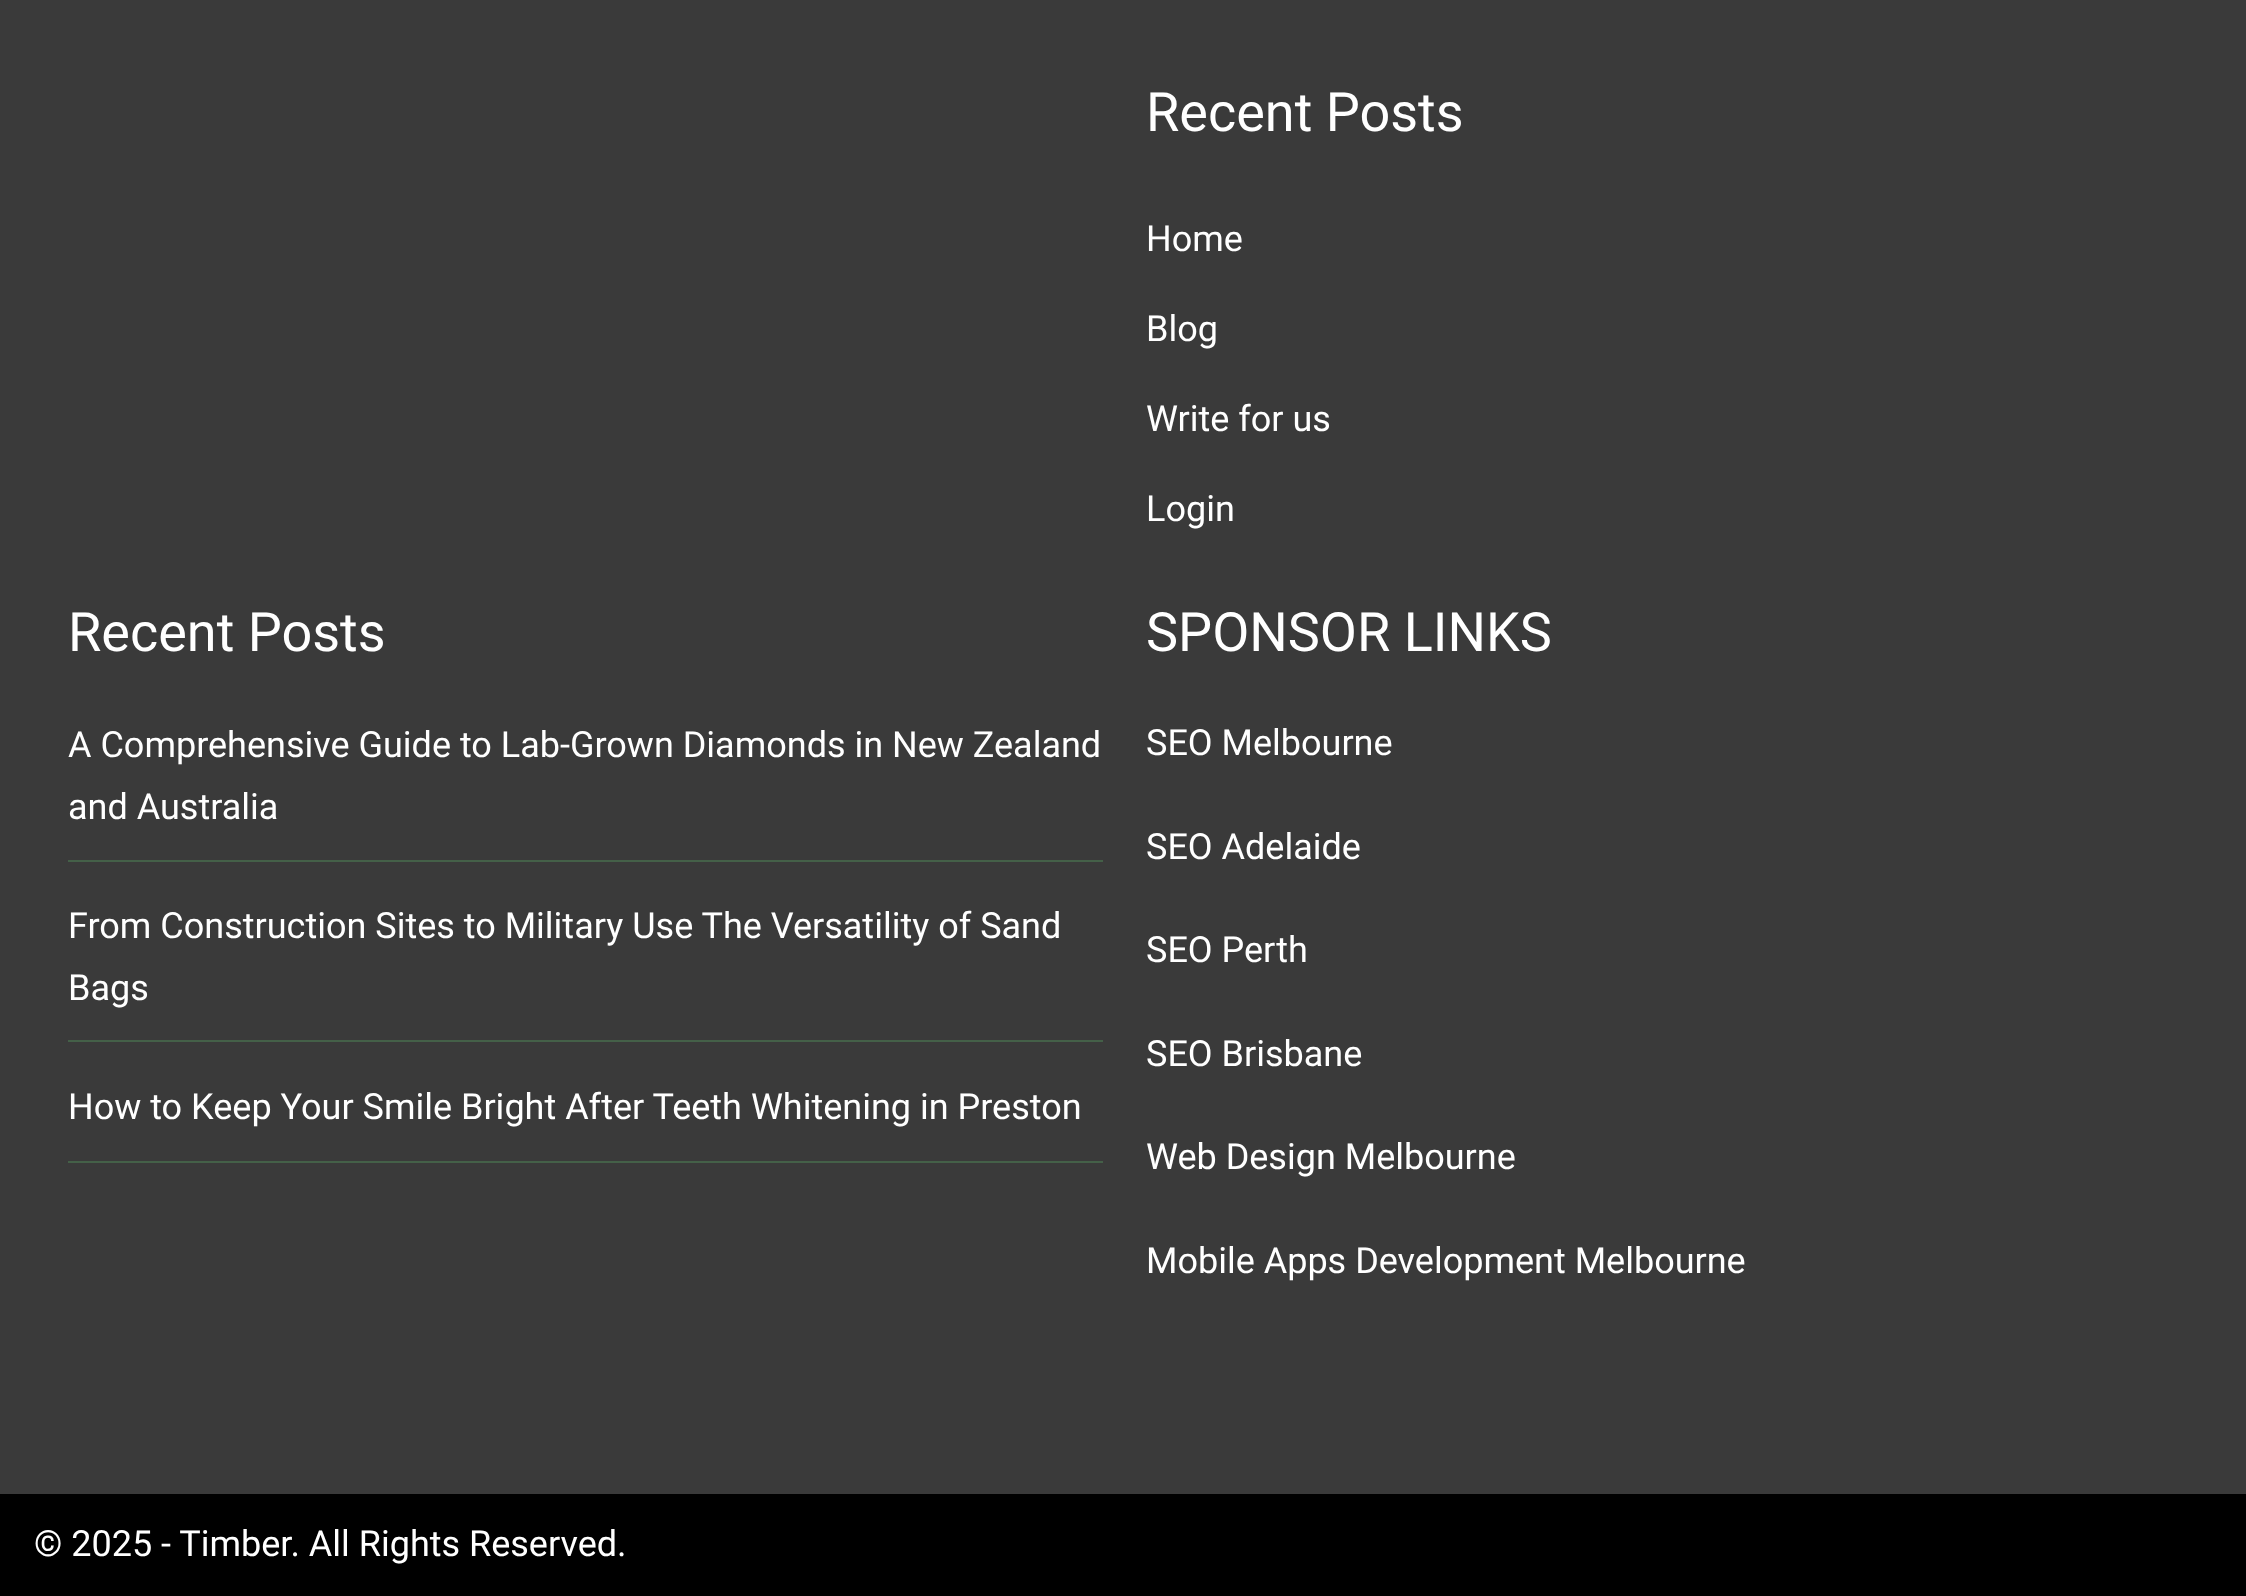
<svg xmlns="http://www.w3.org/2000/svg" width="2246" height="1596" viewBox="0 0 2246 1596">
  <rect width="100%" height="100%" fill="rgb(58,58,58)"/>
  <text x="1146" y="131" font-family="Roboto" font-size="54" fill="rgb(255,255,255)">Recent Posts</text>
  <g font-family="Roboto" font-size="36" fill="rgb(255,255,255)">
    <text x="1146" y="251">Home</text>
    <text x="1146" y="341">Blog</text>
    <text x="1146" y="431">Write for us</text>
    <text x="1146" y="521">Login</text>
  </g>
  <text x="68" y="651" font-family="Roboto" font-size="54" fill="rgb(255,255,255)">Recent Posts</text>
  <rect x="68" y="860" width="1035" height="2" fill="rgb(68,96,72)"/>
  <g font-family="Roboto" font-size="36" fill="rgb(255,255,255)">
    <text>
      <tspan x="68" y="757">A Comprehensive Guide to Lab-Grown Diamonds in New Zealand</tspan>
      <tspan x="68" y="819">and Australia</tspan>
    </text>
  </g>
  <rect x="68" y="1040" width="1035" height="2" fill="rgb(68,96,72)"/>
  <g font-family="Roboto" font-size="36" fill="rgb(255,255,255)">
    <text>
      <tspan x="68" y="938">From Construction Sites to Military Use The Versatility of Sand</tspan>
      <tspan x="68" y="1000">Bags</tspan>
    </text>
  </g>
  <rect x="68" y="1161" width="1035" height="2" fill="rgb(68,96,72)"/>
  <text x="68" y="1119" font-family="Roboto" font-size="36" fill="rgb(255,255,255)">How to Keep Your Smile Bright After Teeth Whitening in Preston</text>
  <text x="1146" y="651" font-family="Roboto" font-size="54" fill="rgb(255,255,255)">SPONSOR LINKS</text>
  <g font-family="Roboto" font-size="36" fill="rgb(255,255,255)">
    <text x="1146" y="755">SEO Melbourne</text>
    <text x="1146" y="859">SEO Adelaide</text>
    <text x="1146" y="962">SEO Perth</text>
    <text x="1146" y="1066">SEO Brisbane</text>
    <text x="1146" y="1169">Web Design Melbourne</text>
    <text x="1146" y="1273">Mobile Apps Development Melbourne</text>
  </g>
  <rect x="0" y="1494" width="2246" height="102" fill="rgb(0,0,0)"/>
  <text x="34" y="1556" font-family="Roboto" font-size="36" fill="rgb(255,255,255)">© 2025 - Timber. All Rights Reserved.</text>
</svg>
